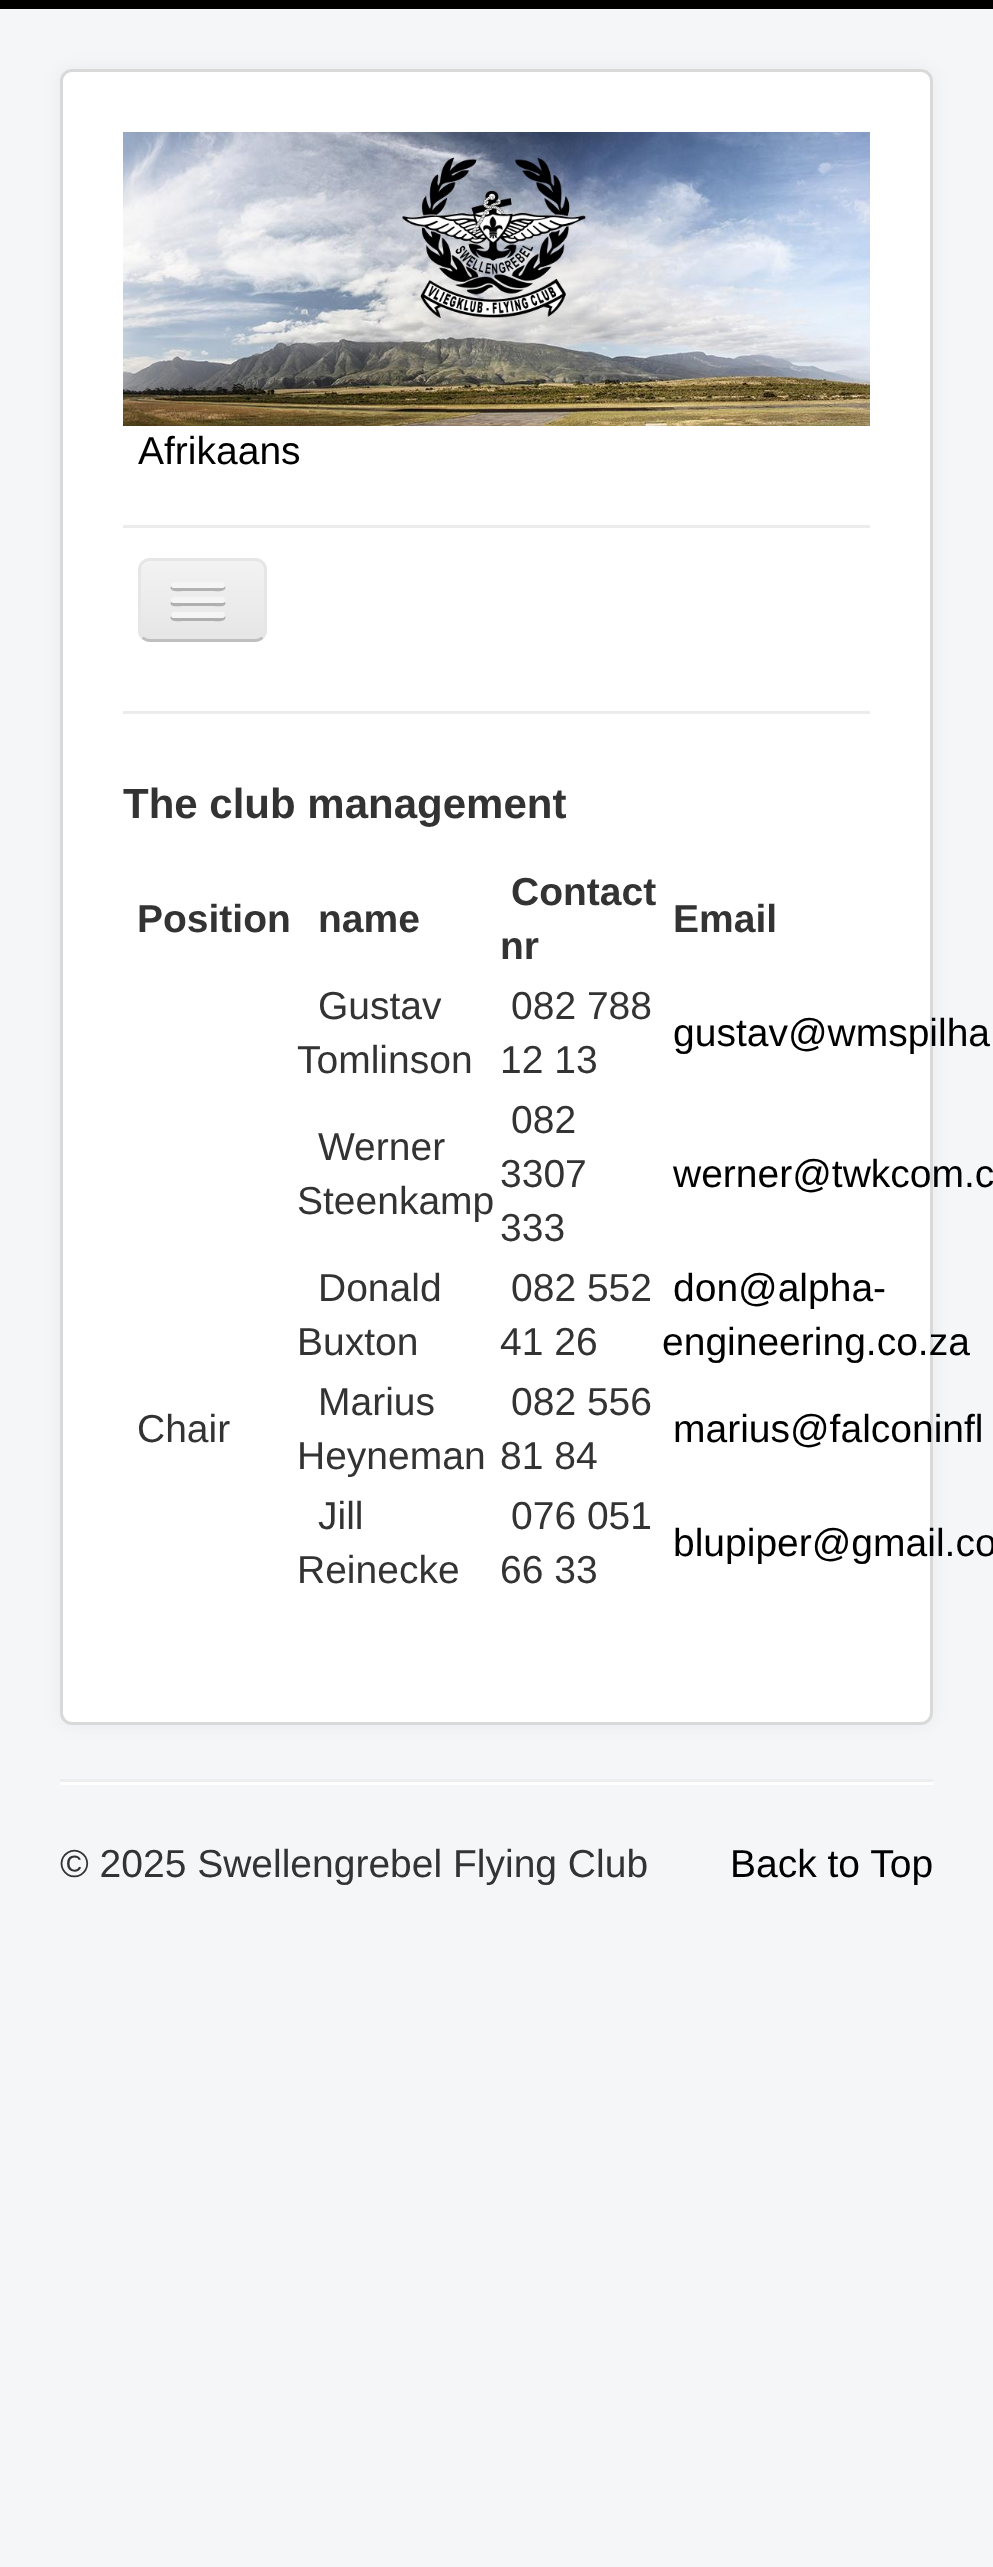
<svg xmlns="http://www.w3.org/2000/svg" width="993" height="2567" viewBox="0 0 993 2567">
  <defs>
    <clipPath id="clip1"><rect x="138" y="558" width="129" height="84" rx="12"/></clipPath>
    <linearGradient id="g1" gradientUnits="userSpaceOnUse" x1="203" y1="561" x2="203" y2="639"><stop offset="0" stop-color="rgb(242,242,242)"/><stop offset="1" stop-color="rgb(230,230,230)"/></linearGradient>
  </defs>
  <rect width="100%" height="100%" fill="rgb(244,246,247)"/>
  <rect x="0" y="0" width="993" height="9" fill="rgb(0,0,0)"/>
  <rect x="60" y="69" width="873" height="1656" rx="12" fill="rgba(0,0,0,0.05)" filter="blur(9px)"/>
  <rect x="60" y="69" width="873" height="1656" rx="12" fill="rgb(255,255,255)"/>
  <rect x="61.5" y="70.5" width="870" height="1653" rx="10.5" fill="none" stroke="rgba(0,0,0,0.15)" stroke-width="3"/>
  <image x="123" y="132" width="747" height="294" href="pic1.png"/>
  <text x="138" y="464" font-family="Liberation Sans" font-size="39" fill="rgb(0,0,0)">Afrikaans</text>
  <rect x="123" y="525" width="747" height="3" fill="rgb(236,236,236)"/>
  <rect x="123" y="711" width="747" height="3" fill="rgb(236,236,236)"/>
  <g clip-path="url(#clip1)">
    <rect x="138" y="561" width="129" height="78" fill="url(#g1)"/>
  </g>
  <path d="M150 564H255C260 564 264 568 264 573C264 557 251 561 238 561H168C154 561 141 557 141 573C141 568 145 564 150 564Z" fill="rgb(243,243,243)"/>
  <path d="M262.5 637.5C260.5 639.5 258 640.5 255 640.5H150C147 640.5 144.5 639.5 142.5 637.5" fill="none" stroke="rgb(191,191,191)" stroke-width="3"/>
  <path d="M142.5 637.5C140.5 635.5 139.5 633 139.5 630V570C139.5 567 140.5 564.5 142.5 562.5C144.5 560.5 147 559.5 150 559.5H255C258 559.5 260.5 560.5 262.5 562.5C264.5 564.5 265.5 567 265.5 570V630C265.5 633 264.5 635.5 262.5 637.5" fill="none" stroke="rgb(230,230,230)" stroke-width="3"/>
  <path d="M171 586C168 593 182 591 182 591H214C214 591 228 593 225 586C224 587 223 588 222 588H174C173 588 172 587 171 586Z" fill="rgb(178,178,178)"/>
  <rect x="171" y="582" width="54" height="6" rx="3" fill="rgb(245,245,245)"/>
  <path d="M171 602C168 608 182 606 182 606H214C214 606 228 608 225 602C224 602 223 603 222 603H174C173 603 172 602 171 602Z" fill="rgb(176,176,176)"/>
  <rect x="171" y="597" width="54" height="6" rx="3" fill="rgb(245,245,245)"/>
  <path d="M171 616C168 623 182 621 182 621H214C214 621 228 623 225 616C224 617 223 618 222 618H174C173 618 172 617 171 616Z" fill="rgb(175,175,175)"/>
  <rect x="171" y="612" width="54" height="6" rx="3" fill="rgb(245,245,245)"/>
  <text x="123" y="818" font-family="Liberation Sans" font-size="42" font-weight="bold" fill="rgb(51,51,51)">The club management</text>
  <g font-family="Liberation Sans" font-size="39" font-weight="bold" fill="rgb(51,51,51)">
    <text x="137" y="932">Position</text>
    <text x="318" y="932">name</text>
    <text x="511" y="905">Contact</text>
    <text x="500" y="959">nr</text>
    <text x="673" y="932">Email</text>
  </g>
  <g font-family="Liberation Sans" font-size="39" fill="rgb(51,51,51)">
    <text x="318" y="1019">Gustav</text>
    <text x="297" y="1073">Tomlinson</text>
    <text x="511" y="1019">082 788</text>
    <text x="500" y="1073">12 13</text>
  </g>
  <text x="673" y="1046" font-family="Liberation Sans" font-size="39" fill="rgb(0,0,0)">gustav@wmspilha</text>
  <g font-family="Liberation Sans" font-size="39" fill="rgb(51,51,51)">
    <text x="318" y="1160">Werner</text>
    <text x="297" y="1214">Steenkamp</text>
    <text x="511" y="1133">082</text>
    <text>
      <tspan x="500" y="1187">3307</tspan>
      <tspan x="500" y="1241">333</tspan>
    </text>
  </g>
  <text x="673" y="1187" font-family="Liberation Sans" font-size="39" fill="rgb(0,0,0)">werner@twkcom.c</text>
  <g font-family="Liberation Sans" font-size="39" fill="rgb(51,51,51)">
    <text x="318" y="1301">Donald</text>
    <text x="297" y="1355">Buxton</text>
    <text x="511" y="1301">082 552</text>
    <text x="500" y="1355">41 26</text>
  </g>
  <g font-family="Liberation Sans" font-size="39" fill="rgb(0,0,0)">
    <text x="673" y="1301">don@alpha-</text>
    <text x="662" y="1355">engineering.co.za</text>
  </g>
  <g font-family="Liberation Sans" font-size="39" fill="rgb(51,51,51)">
    <text x="137" y="1442">Chair</text>
    <text x="318" y="1415">Marius</text>
    <text x="297" y="1469">Heyneman</text>
    <text x="511" y="1415">082 556</text>
    <text x="500" y="1469">81 84</text>
  </g>
  <text x="673" y="1442" font-family="Liberation Sans" font-size="39" fill="rgb(0,0,0)">marius@falconinfl</text>
  <g font-family="Liberation Sans" font-size="39" fill="rgb(51,51,51)">
    <text x="318" y="1529">Jill</text>
    <text x="297" y="1583">Reinecke</text>
    <text x="511" y="1529">076 051</text>
    <text x="500" y="1583">66 33</text>
  </g>
  <text x="673" y="1556" font-family="Liberation Sans" font-size="39" fill="rgb(0,0,0)">blupiper@gmail.co</text>
  <rect x="60" y="1779" width="873" height="3" fill="rgb(238,238,238)"/>
  <rect x="60" y="1782" width="873" height="3" fill="rgb(255,255,255)"/>
  <text x="60" y="1877" font-family="Liberation Sans" font-size="39" fill="rgb(51,51,51)">© 2025 Swellengrebel Flying Club</text>
  <text x="730" y="1877" font-family="Liberation Sans" font-size="39" fill="rgb(0,0,0)">Back to Top</text>
</svg>
